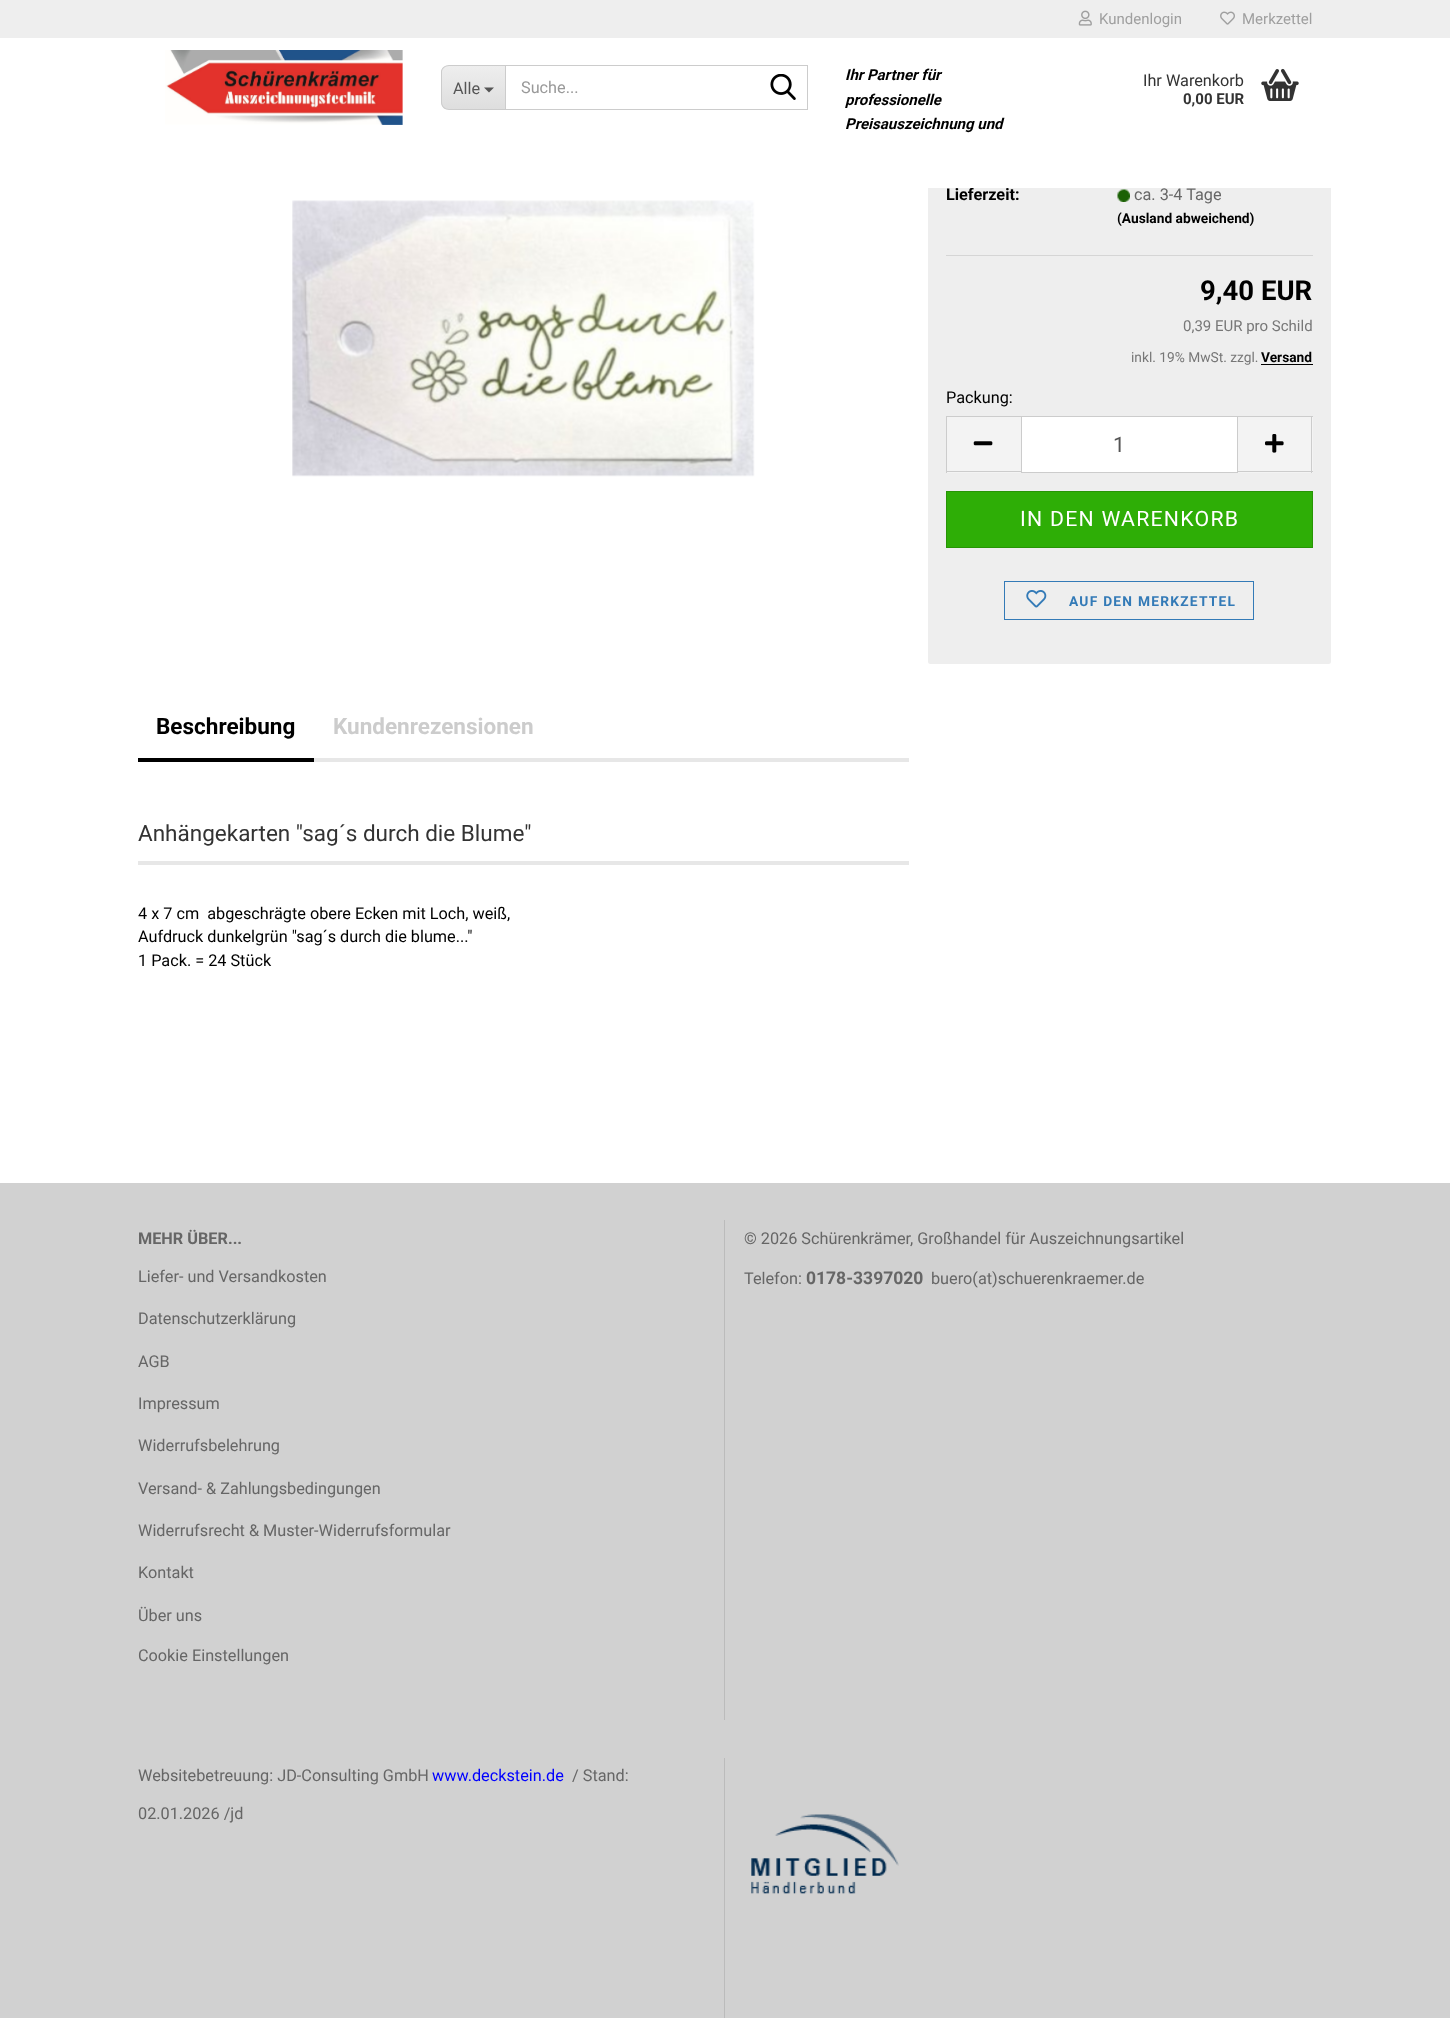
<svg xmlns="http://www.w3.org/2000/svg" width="1450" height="2018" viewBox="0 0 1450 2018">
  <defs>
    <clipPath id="clip1"><path d="M449 65H505V110H449C444.5 110 441 106.5 441 102V73C441 68.5 444.5 65 449 65Z"/></clipPath>
    <linearGradient id="g1" gradientUnits="userSpaceOnUse" x1="474" y1="66" x2="474" y2="109"><stop offset="0" stop-color="rgb(238,238,238)"/><stop offset="1" stop-color="rgb(222,222,222)"/></linearGradient>
  </defs>
  <rect width="100%" height="100%" fill="rgb(255,255,255)"/>
  <rect x="928" y="10" width="403" height="654" rx="2.5" fill="rgb(238,238,238)"/>
  <text x="946" y="200" font-family="Roboto" font-size="16.25" font-weight="bold" fill="rgb(0,0,0)">Lieferzeit:</text>
  <rect x="928" y="38" width="403" height="150" fill="rgb(255,255,255)"/>
  <rect x="0" y="0" width="1450" height="38" fill="rgb(238,238,238)"/>
  <image x="1078" y="10" width="14" height="16" href="pic1.png"/>
  <text x="1099" y="24" font-family="Roboto" font-size="15" fill="rgb(159,159,159)">Kundenlogin</text>
  <image x="1220" y="11" width="15" height="14" href="pic2.png"/>
  <text x="1242" y="24" font-family="Roboto" font-size="15" fill="rgb(159,159,159)">Merkzettel</text>
  <image x="165" y="50" width="238" height="75" href="pic3.png"/>
  <g clip-path="url(#clip1)">
    <rect x="441" y="66" width="64" height="43" fill="url(#g1)"/>
  </g>
  <path d="M449 65H505V110H449C445 110 441 107 441 102V72C441 68 445 65 449 65ZM449 66H505V109H449C445 109 442 106 442 102V72C442 69 445 66 449 66Z" fill="rgb(204,204,204)" fill-rule="evenodd"/>
  <text x="453" y="94" font-family="Roboto" font-size="16.25" fill="rgb(85,85,85)">Alle</text>
  <path d="M484 87.5H494L489 92.5Z" fill="rgb(85,85,85)"/>
  <rect x="505.5" y="65.5" width="302" height="44" fill="none" stroke="rgb(204,204,204)"/>
  <text x="521" y="93" font-family="Roboto" font-size="16.25" fill="rgb(153,153,153)">Suche...</text>
  <image x="770" y="74" width="26" height="26" href="pic4.png"/>
  <g font-family="Roboto" font-size="15" font-weight="bold" font-style="italic" fill="rgb(0,0,0)">
    <text>
      <tspan x="845" y="80">Ihr Partner für</tspan>
      <tspan x="845" y="105">professionelle</tspan>
      <tspan x="845" y="129">Preisauszeichnung und</tspan>
    </text>
  </g>
  <text x="1143" y="86" font-family="Roboto" font-size="16.25" fill="rgb(51,51,51)">Ihr Warenkorb</text>
  <text x="1183" y="104" font-family="Roboto" font-size="15" font-weight="bold" fill="rgb(51,51,51)">0,00 EUR</text>
  <image x="1261" y="68" width="38" height="33" href="pic5.png"/>
  <image x="292" y="200" width="463" height="277" href="pic6.png"/>
  <rect x="946" y="255" width="367" height="1" fill="rgb(213,213,213)"/>
  <image x="1117" y="189" width="13" height="13" href="pic7.png"/>
  <text x="1134" y="200" font-family="Roboto" font-size="16.25" fill="rgb(102,102,102)">ca. 3-4 Tage</text>
  <text x="1117" y="223" font-family="Roboto" font-size="13.75" font-weight="bold" fill="rgb(0,0,0)">(Ausland abweichend)</text>
  <text x="1200" y="300" font-family="Roboto" font-size="27.5" font-weight="bold" fill="rgb(0,0,0)">9,40 EUR</text>
  <text x="1183" y="331" font-family="Roboto" font-size="15" fill="rgb(119,119,119)">0,39 EUR pro Schild</text>
  <text x="1131" y="362" font-family="Roboto" font-size="13.75" fill="rgb(119,119,119)">inkl. 19% MwSt. zzgl.</text>
  <text x="1261" y="362" font-family="Roboto" font-size="13.75" font-weight="bold" fill="rgb(0,0,0)">Versand</text>
  <rect x="1261" y="364" width="52" height="1" fill="rgb(0,0,0)"/>
  <text x="946" y="403" font-family="Roboto" font-size="16.25" fill="rgb(0,0,0)">Packung:</text>
  <rect x="947" y="417" width="74" height="56" fill="rgb(243,243,243)"/>
  <rect x="946" y="416" width="75" height="1" fill="rgb(204,204,204)"/>
  <rect x="946" y="471" width="75" height="1" fill="rgb(204,204,204)"/>
  <rect x="946" y="416" width="1" height="57" fill="rgb(204,204,204)"/>
  <image x="973" y="441" width="20" height="5" href="pic8.png"/>
  <rect x="1021.5" y="416.5" width="216" height="56" fill="rgb(255,255,255)" stroke="rgb(204,204,204)"/>
  <text x="1113" y="452" font-family="Roboto" font-size="21.25" fill="rgb(85,85,85)">1</text>
  <rect x="1238" y="417" width="75" height="56" fill="rgb(243,243,243)"/>
  <rect x="1238" y="416" width="75" height="1" fill="rgb(204,204,204)"/>
  <rect x="1311" y="416" width="1" height="57" fill="rgb(204,204,204)"/>
  <rect x="1238" y="471" width="75" height="1" fill="rgb(204,204,204)"/>
  <image x="1265" y="434" width="19" height="19" href="pic9.png"/>
  <rect x="946.5" y="491.5" width="366" height="56" fill="rgb(46,174,6)" stroke="rgb(39,149,5)"/>
  <text x="1020" y="526" font-family="Roboto" font-size="21.25" letter-spacing="1.25" fill="rgb(255,255,255)">IN DEN WARENKORB</text>
  <rect x="1004.5" y="581.5" width="249" height="38" fill="none" stroke="rgb(51,122,183)"/>
  <image x="1026" y="590" width="21" height="18" href="pic10.png"/>
  <text x="1069" y="606" font-family="Roboto" font-size="13.75" font-weight="bold" letter-spacing="1.25" fill="rgb(51,122,183)">AUF DEN MERKZETTEL</text>
  <rect x="314" y="758" width="595" height="4" fill="rgb(231,231,231)"/>
  <rect x="138" y="758" width="176" height="4" fill="rgb(0,0,0)"/>
  <text x="156" y="734" font-family="Roboto" font-size="22.5" font-weight="bold" fill="rgb(0,0,0)">Beschreibung</text>
  <text x="333" y="734" font-family="Roboto" font-size="22.5" font-weight="bold" fill="rgb(204,204,204)">Kundenrezensionen</text>
  <rect x="138" y="861" width="771" height="4" fill="rgb(231,231,231)"/>
  <text x="138" y="841" font-family="Roboto" font-size="22.5" fill="rgb(51,51,51)">Anhängekarten "sag´s durch die Blume"</text>
  <g font-family="Roboto" font-size="16.25" fill="rgb(0,0,0)">
    <text xml:space="preserve"><tspan x="138" y="919">4 x 7 cm  abgeschrägte obere Ecken mit Loch, weiß,</tspan><tspan x="138" y="942">Aufdruck dunkelgrün "sag´s durch die blume..."</tspan><tspan x="138" y="966">1 Pack. = 24 Stück</tspan></text>
  </g>
  <rect x="0" y="1183" width="1450" height="835" fill="rgb(209,209,209)"/>
  <rect x="724" y="1220" width="1" height="500" fill="rgb(187,187,187)"/>
  <text x="138" y="1244" font-family="Roboto" font-size="16.25" font-weight="bold" fill="rgb(102,102,102)">MEHR ÜBER...</text>
  <g font-family="Roboto" font-size="16.25" fill="rgb(102,102,102)">
    <text x="138" y="1282">Liefer- und Versandkosten</text>
    <text x="138" y="1324">Datenschutzerklärung</text>
    <text x="138" y="1367">AGB</text>
    <text x="138" y="1409">Impressum</text>
    <text x="138" y="1451">Widerrufsbelehrung</text>
    <text x="138" y="1494">Versand- &amp; Zahlungsbedingungen</text>
    <text x="138" y="1536">Widerrufsrecht &amp; Muster-Widerrufsformular</text>
    <text x="138" y="1578">Kontakt</text>
    <text x="138" y="1621">Über uns</text>
    <text x="138" y="1661">Cookie Einstellungen</text>
    <text x="744" y="1244">© 2026 Schürenkrämer, Großhandel für Auszeichnungsartikel</text>
    <text x="744" y="1284">Telefon:</text>
  </g>
  <text x="806" y="1284" font-family="Roboto" font-size="17.5" font-weight="bold" fill="rgb(102,102,102)">0178-3397020</text>
  <text x="931" y="1284" font-family="Roboto" font-size="16.25" fill="rgb(102,102,102)">buero(at)schuerenkraemer.de</text>
  <rect x="724" y="1758" width="1" height="260" fill="rgb(187,187,187)"/>
  <text x="138" y="1781" font-family="Roboto" font-size="16.25" fill="rgb(102,102,102)">Websitebetreuung: JD-Consulting GmbH</text>
  <text x="432" y="1781" font-family="Roboto" font-size="16.25" fill="rgb(0,0,255)">www.deckstein.de</text>
  <g font-family="Roboto" font-size="16.25" fill="rgb(102,102,102)">
    <text x="572" y="1781">/ Stand:</text>
    <text x="138" y="1819">02.01.2026 /jd</text>
  </g>
  <image x="751" y="1814" width="148" height="80" href="pic11.png"/>
</svg>
